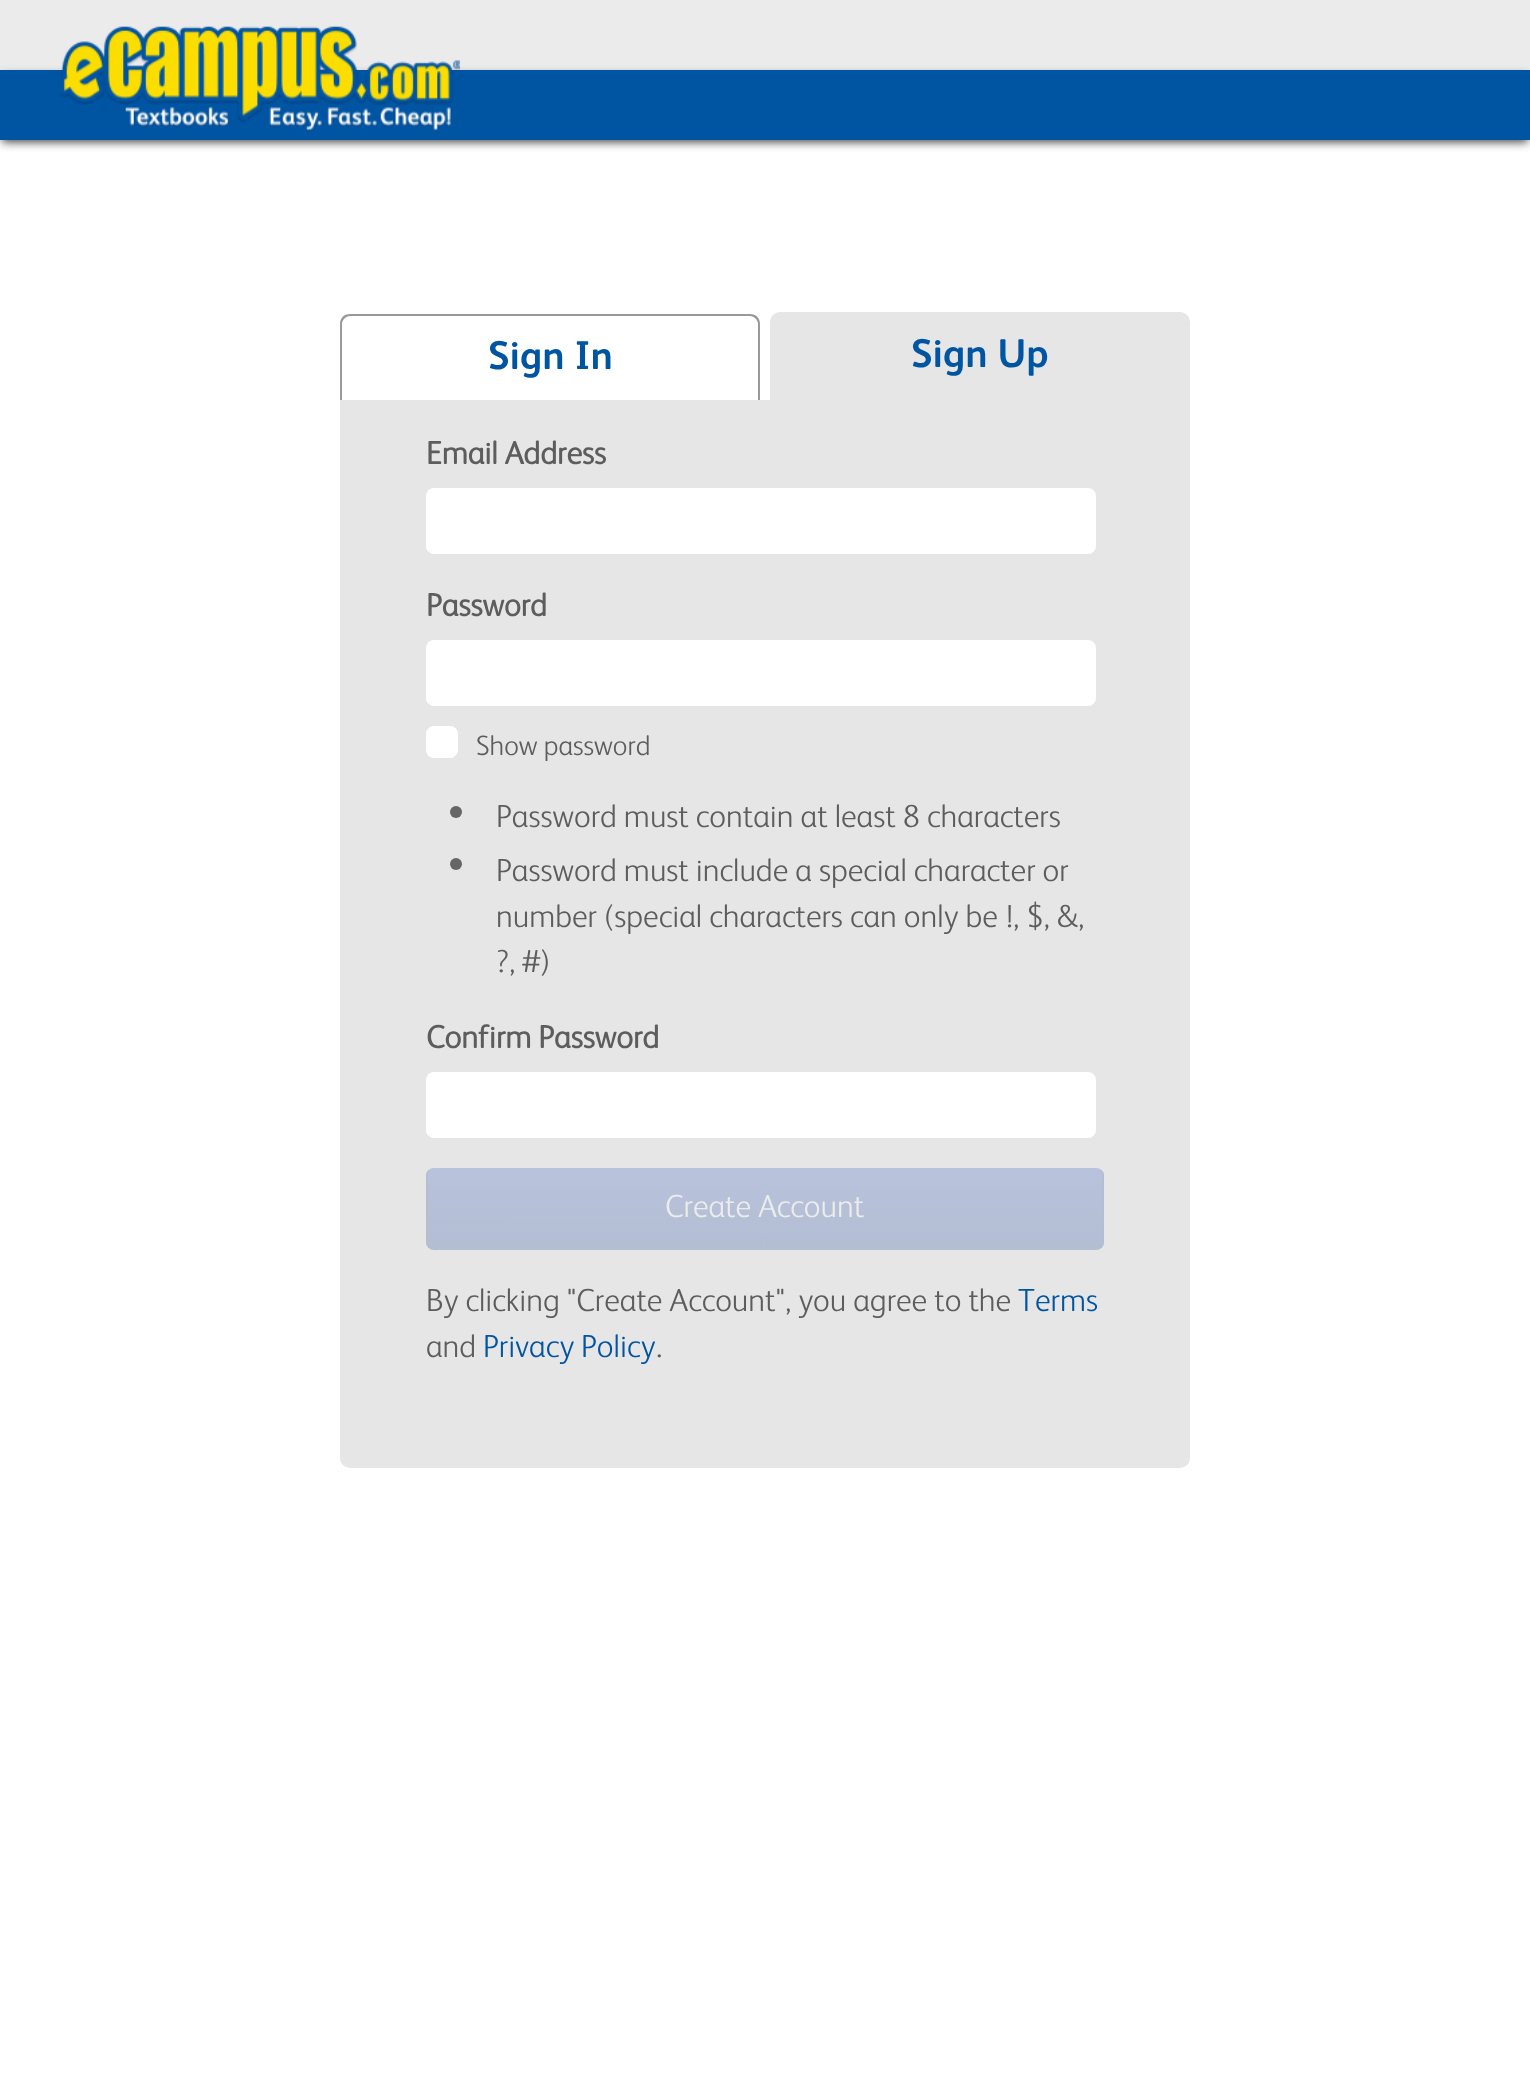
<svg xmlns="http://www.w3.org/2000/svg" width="1530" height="2085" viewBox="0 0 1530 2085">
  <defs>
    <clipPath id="clip1"><rect x="426" y="1168" width="678" height="82" rx="8"/></clipPath>
    <linearGradient id="g1" gradientUnits="userSpaceOnUse" x1="428" y1="1170" x2="428" y2="1248"><stop offset="0" stop-color="rgb(184,194,220)"/><stop offset="1" stop-color="rgb(179,190,211)"/></linearGradient>
  </defs>
  <rect width="100%" height="100%" fill="rgb(255,255,255)"/>
  <rect x="0" y="0" width="1530" height="70" fill="rgb(235,235,235)"/>
  <rect x="2" y="76" width="1526" height="66" fill="rgba(0,0,0,0.75)" filter="blur(5px)"/>
  <rect x="0" y="70" width="1530" height="70" fill="rgb(0,85,163)"/>
  <image x="60" y="26" width="400" height="106" href="pic1.png"/>
  <path d="M350 314H750C756 314 760 318 760 324V400H340V324C340 318 344 314 350 314ZM350 316H750C754 316 758 320 758 324V400H342V324C342 320 346 316 350 316Z" fill="rgb(153,153,153)" fill-rule="evenodd"/>
  <text x="488" y="369" font-family="'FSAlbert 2'" font-size="40" font-weight="bold" fill="rgb(0,85,163)">Sign In</text>
  <path d="M780 313H1180C1185 313 1189 317 1189 322V399H771V322C771 317 775 313 780 313Z" fill="rgb(230,230,230)" stroke="rgb(230,230,230)" stroke-width="2"/>
  <text x="911" y="367" font-family="'FSAlbert 2'" font-size="40" font-weight="bold" fill="rgb(0,85,163)">Sign Up</text>
  <path d="M341 401H1189V1458C1189 1463 1185 1467 1180 1467H350C345 1467 341 1463 341 1458Z" fill="rgb(230,230,230)" stroke="rgb(230,230,230)" stroke-width="2"/>
  <text x="426" y="464" font-family="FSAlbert" font-size="32" font-weight="bold" fill="rgb(93,93,93)">Email Address</text>
  <rect x="427" y="489" width="668" height="64" rx="7" fill="rgb(255,255,255)" stroke="rgb(255,255,255)" stroke-width="2"/>
  <text x="426" y="616" font-family="FSAlbert" font-size="32" font-weight="bold" fill="rgb(93,93,93)">Password</text>
  <rect x="427" y="641" width="668" height="64" rx="7" fill="rgb(255,255,255)" stroke="rgb(255,255,255)" stroke-width="2"/>
  <rect x="427" y="727" width="30" height="30" rx="7" fill="rgb(255,255,255)" stroke="rgb(255,255,255)" stroke-width="2"/>
  <text x="476" y="755" font-family="FSAlbert" font-size="28" font-weight="300" fill="rgb(93,93,93)">Show password</text>
  <circle cx="456" cy="812" r="6" fill="rgb(102,102,102)"/>
  <text x="496" y="827" font-family="FSAlbert" font-size="32" font-weight="300" fill="rgb(93,93,93)">Password must contain at least 8 characters</text>
  <circle cx="456" cy="864" r="6" fill="rgb(102,102,102)"/>
  <g font-family="FSAlbert" font-size="32" font-weight="300" fill="rgb(93,93,93)">
    <text>
      <tspan x="496" y="881">Password must include a special character or</tspan>
      <tspan x="496" y="927">number (special characters can only be !, $, &amp;,</tspan>
      <tspan x="496" y="972">?, #)</tspan>
    </text>
  </g>
  <text x="426" y="1048" font-family="FSAlbert" font-size="32" font-weight="bold" fill="rgb(93,93,93)">Confirm Password</text>
  <rect x="427" y="1073" width="668" height="64" rx="7" fill="rgb(255,255,255)" stroke="rgb(255,255,255)" stroke-width="2"/>
  <g clip-path="url(#clip1)">
    <rect x="426" y="1170" width="678" height="78" fill="url(#g1)"/>
  </g>
  <path d="M429 1171C430.5 1169.5 432 1169 434 1169H1096C1098 1169 1099.5 1169.5 1101 1171" fill="none" stroke="rgb(184,194,220)" stroke-width="2"/>
  <path d="M1101 1171C1102.5 1172.5 1103 1174 1103 1176V1242C1103 1244 1102.5 1245.5 1101 1247C1099.5 1248.5 1098 1249 1096 1249H434C432 1249 430.5 1248.5 429 1247C427.5 1245.5 427 1244 427 1242V1176C427 1174 427.5 1172.5 429 1171" fill="none" stroke="rgb(179,190,211)" stroke-width="2"/>
  <text x="665" y="1217" font-family="FSAlbert" font-size="32" font-weight="300" fill="rgb(236,236,236)">Create Account</text>
  <text x="426" y="1311" font-family="FSAlbert" font-size="32" font-weight="300" fill="rgb(93,93,93)">By clicking "Create Account", you agree to the</text>
  <text x="1018" y="1311" font-family="FSAlbert" font-size="32" font-weight="300" fill="rgb(0,85,163)">Terms</text>
  <text x="426" y="1357" font-family="FSAlbert" font-size="32" font-weight="300" fill="rgb(93,93,93)">and</text>
  <text x="483" y="1357" font-family="FSAlbert" font-size="32" font-weight="300" fill="rgb(0,85,163)">Privacy Policy</text>
  <text x="656" y="1357" font-family="FSAlbert" font-size="32" font-weight="300" fill="rgb(93,93,93)">.</text>
</svg>
